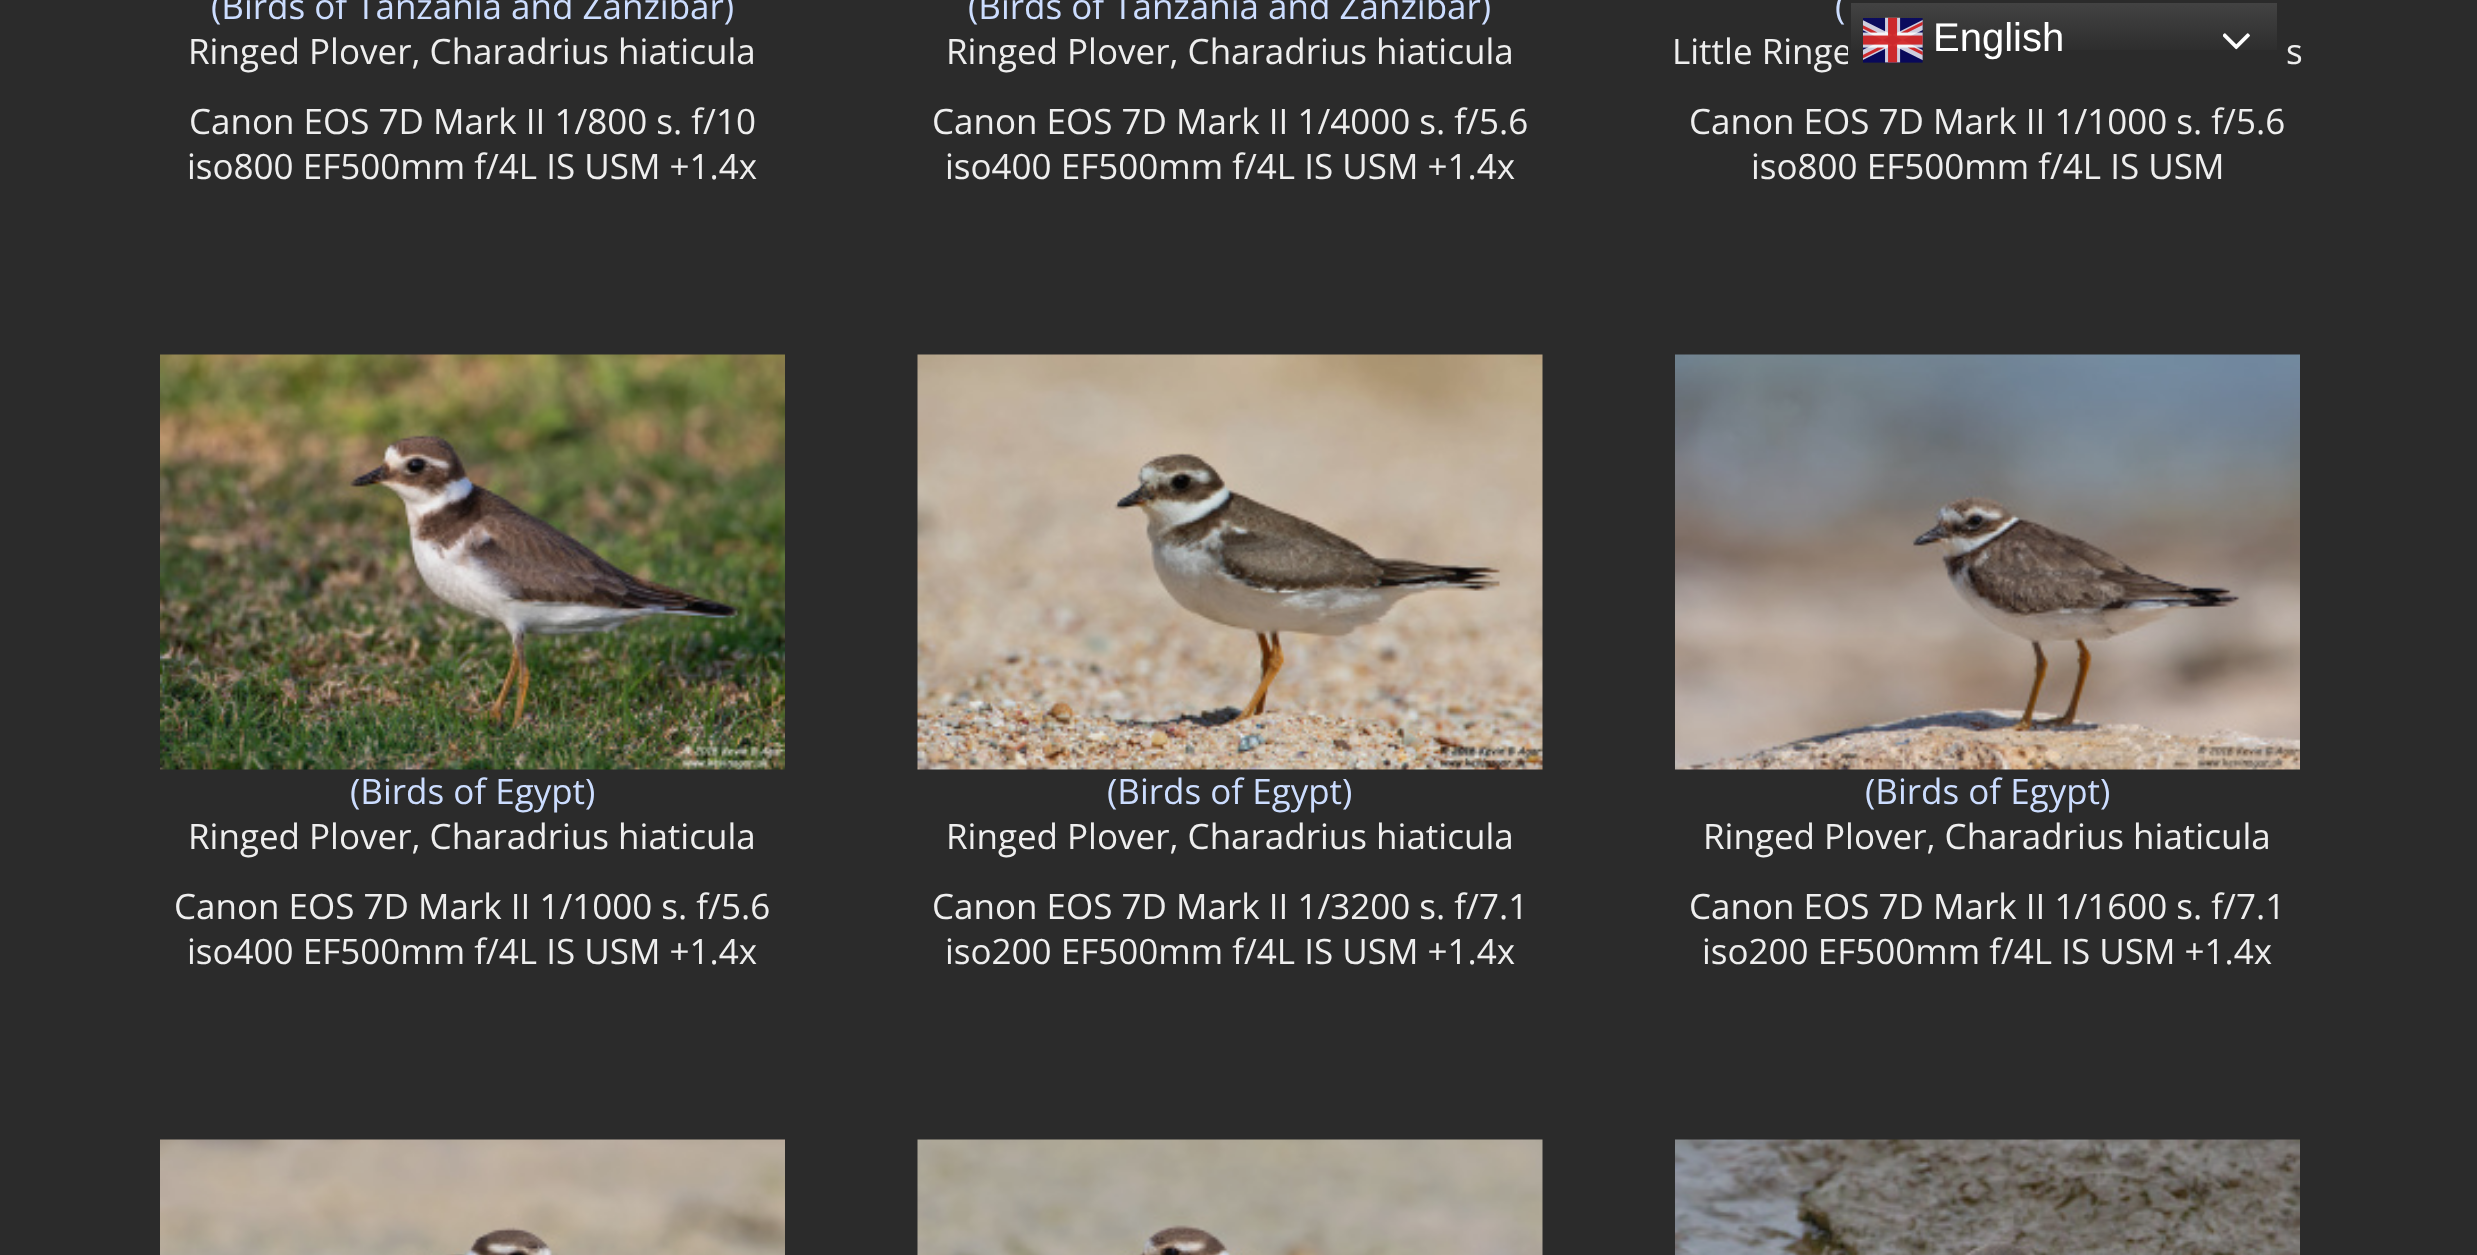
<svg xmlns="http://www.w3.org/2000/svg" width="2477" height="1255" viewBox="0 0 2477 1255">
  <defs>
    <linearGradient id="g1" gradientUnits="userSpaceOnUse" x1="2064" y1="0" x2="2064" y2="80"><stop offset="0" stop-color="rgb(68,68,68)"/><stop offset="0.7" stop-color="rgb(43,43,43)"/></linearGradient>
  </defs>
  <rect width="100%" height="100%" fill="rgb(43,43,43)"/>
  <text x="211" y="19" font-family="Open Sans" font-size="35" fill="rgb(204,221,255)">(Birds of Tanzania and Zanzibar)</text>
  <g font-family="Open Sans" font-size="35" fill="rgb(238,238,238)">
    <text x="188" y="64">Ringed Plover, Charadrius hiaticula</text>
    <text x="189" y="134">Canon EOS 7D Mark II 1/800 s. f/10</text>
    <text x="187" y="179">iso800 EF500mm f/4L IS USM +1.4x</text>
  </g>
  <text x="968" y="19" font-family="Open Sans" font-size="35" fill="rgb(204,221,255)">(Birds of Tanzania and Zanzibar)</text>
  <g font-family="Open Sans" font-size="35" fill="rgb(238,238,238)">
    <text x="946" y="64">Ringed Plover, Charadrius hiaticula</text>
    <text x="932" y="134">Canon EOS 7D Mark II 1/4000 s. f/5.6</text>
    <text x="945" y="179">iso400 EF500mm f/4L IS USM +1.4x</text>
  </g>
  <text x="1835" y="19" font-family="Open Sans" font-size="35" fill="rgb(204,221,255)">(</text>
  <g font-family="Open Sans" font-size="35" fill="rgb(238,238,238)">
    <text x="1672" y="64">Little Ringe</text>
    <text x="2286" y="64">s</text>
    <text x="1689" y="134">Canon EOS 7D Mark II 1/1000 s. f/5.6</text>
    <text x="1751" y="179">iso800 EF500mm f/4L IS USM</text>
  </g>
  <image x="160" y="354" width="625" height="416" href="pic1.png"/>
  <text x="350" y="804" font-family="Open Sans" font-size="35" fill="rgb(204,221,255)">(Birds of Egypt)</text>
  <g font-family="Open Sans" font-size="35" fill="rgb(238,238,238)">
    <text x="188" y="849">Ringed Plover, Charadrius hiaticula</text>
    <text x="174" y="919">Canon EOS 7D Mark II 1/1000 s. f/5.6</text>
    <text x="187" y="964">iso400 EF500mm f/4L IS USM +1.4x</text>
  </g>
  <image x="917" y="354" width="626" height="416" href="pic2.png"/>
  <text x="1107" y="804" font-family="Open Sans" font-size="35" fill="rgb(204,221,255)">(Birds of Egypt)</text>
  <g font-family="Open Sans" font-size="35" fill="rgb(238,238,238)">
    <text x="946" y="849">Ringed Plover, Charadrius hiaticula</text>
    <text x="932" y="919">Canon EOS 7D Mark II 1/3200 s. f/7.1</text>
    <text x="945" y="964">iso200 EF500mm f/4L IS USM +1.4x</text>
  </g>
  <image x="1675" y="354" width="625" height="416" href="pic3.png"/>
  <text x="1865" y="804" font-family="Open Sans" font-size="35" fill="rgb(204,221,255)">(Birds of Egypt)</text>
  <g font-family="Open Sans" font-size="35" fill="rgb(238,238,238)">
    <text x="1703" y="849">Ringed Plover, Charadrius hiaticula</text>
    <text x="1689" y="919">Canon EOS 7D Mark II 1/1600 s. f/7.1</text>
    <text x="1702" y="964">iso200 EF500mm f/4L IS USM +1.4x</text>
  </g>
  <image x="160" y="1139" width="625" height="116" href="pic4.png"/>
  <image x="917" y="1139" width="626" height="116" href="pic5.png"/>
  <image x="1675" y="1139" width="625" height="116" href="pic6.png"/>
  <rect x="1851" y="3" width="426" height="47" fill="url(#g1)"/>
  <rect x="1849.5" y="1.5" width="429" height="77" fill="none" stroke="rgb(43,43,43)" stroke-width="3"/>
  <image x="1863" y="17" width="60" height="46" href="pic7.png"/>
  <text x="1933" y="51" font-family="Liberation Sans" font-size="40" fill="rgb(255,255,255)">English</text>
  <image x="2223" y="33" width="27" height="17" href="pic8.png"/>
</svg>
